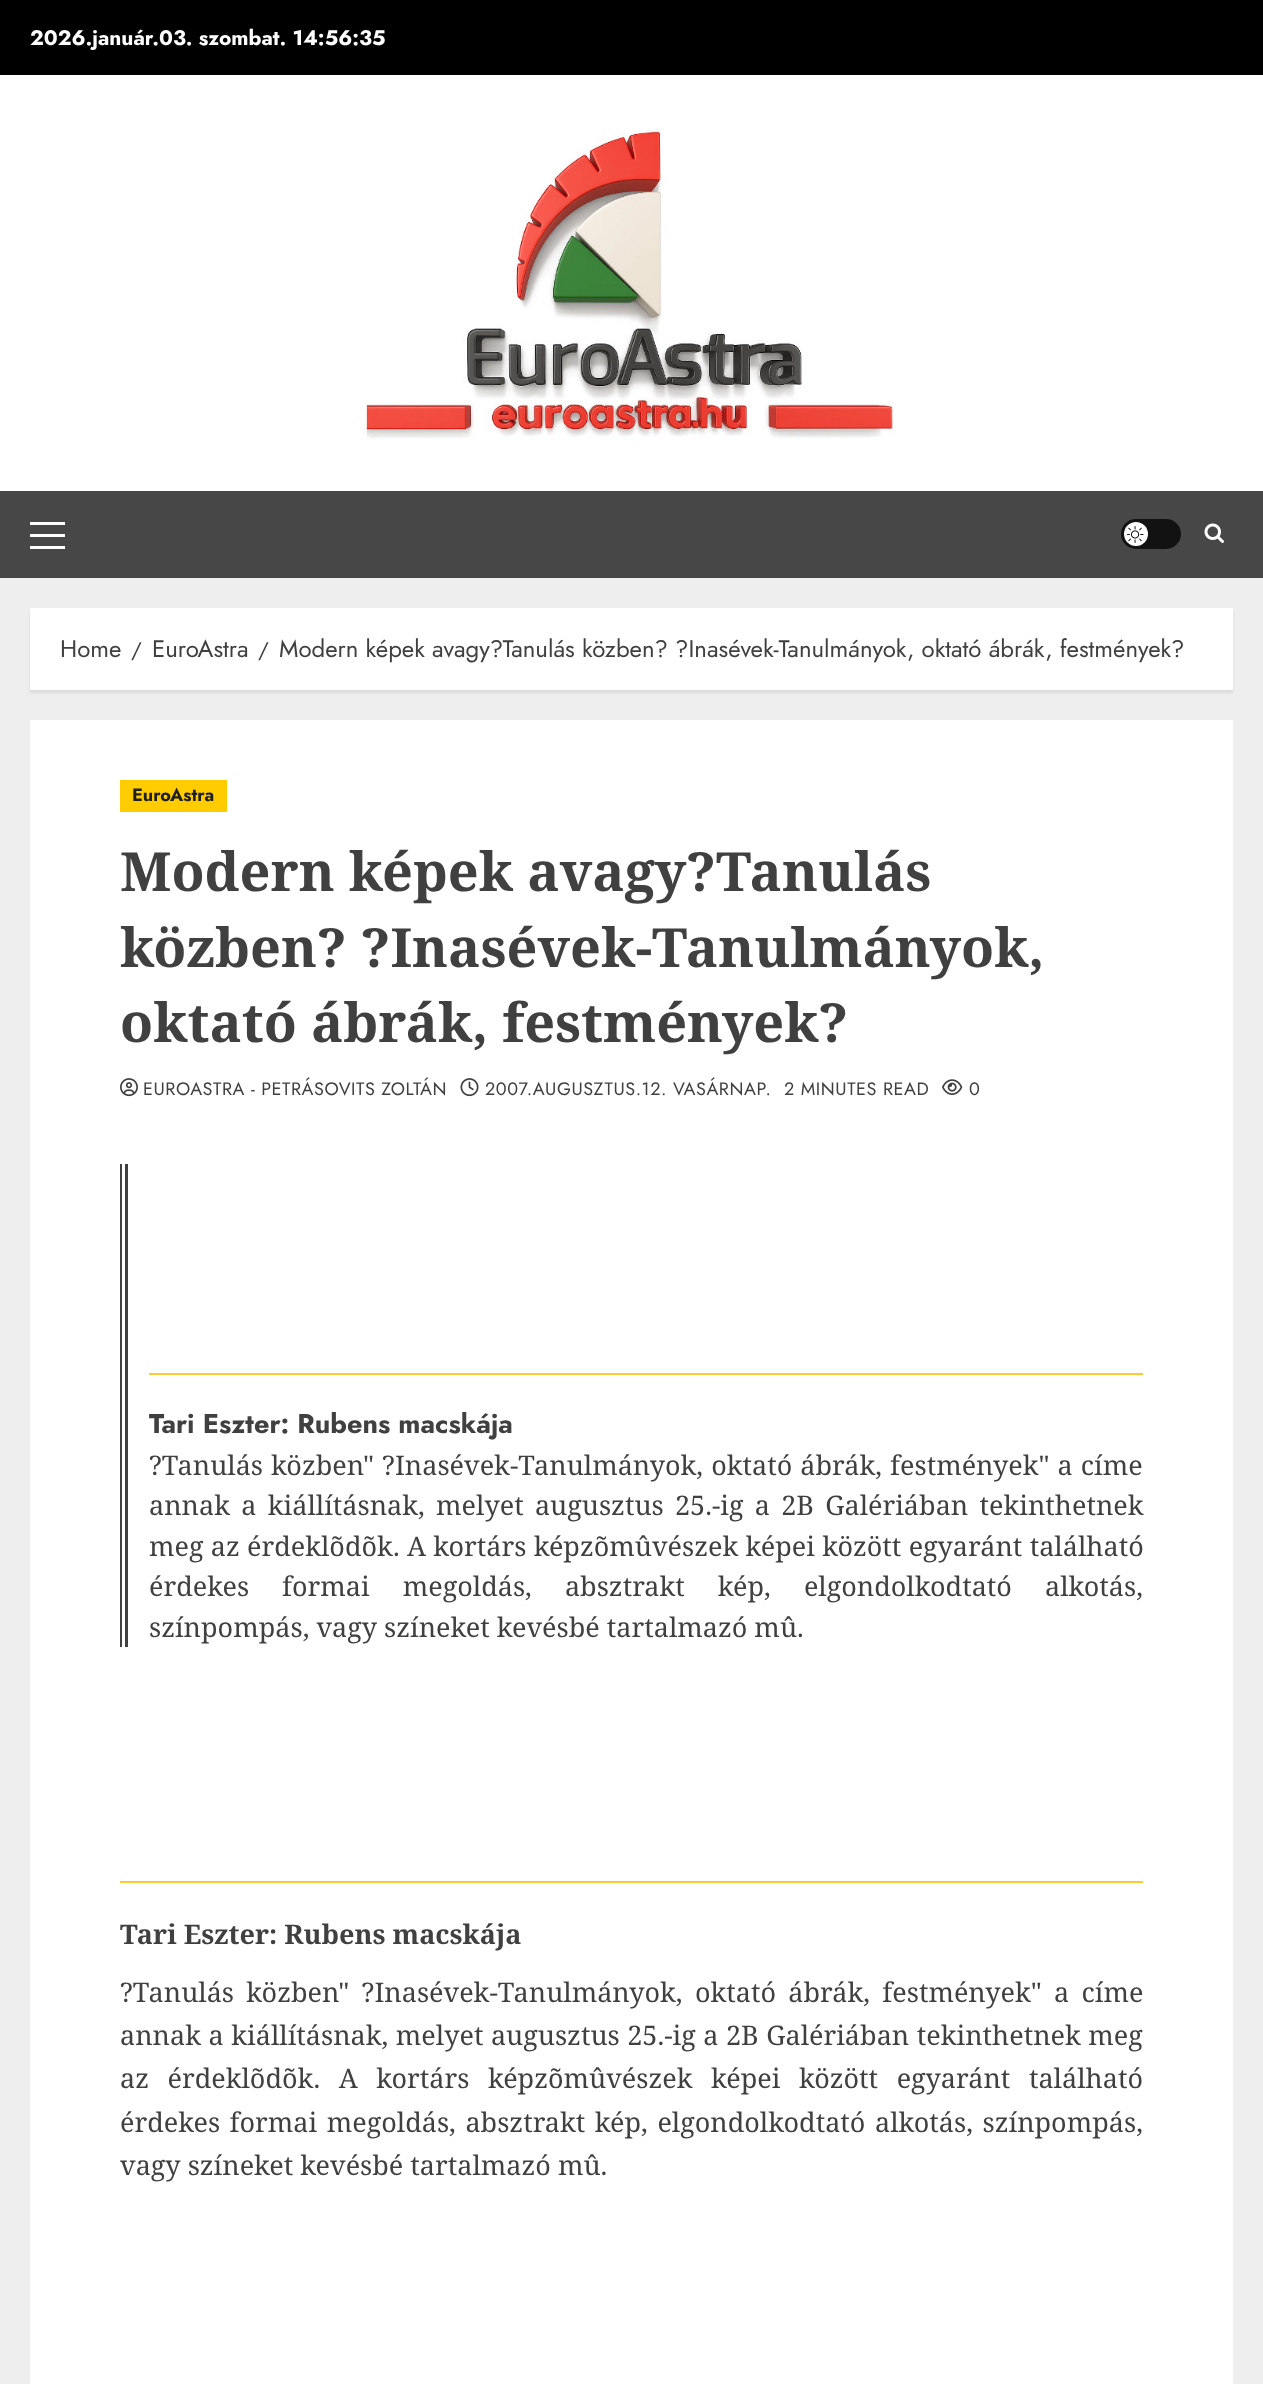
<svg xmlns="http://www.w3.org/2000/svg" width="1263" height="2384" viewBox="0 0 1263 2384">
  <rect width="100%" height="100%" fill="rgb(238,238,238)"/>
  <rect x="0" y="0" width="1263" height="75" fill="rgb(0,0,0)"/>
  <text x="30" y="45" font-family="Jost" font-size="21" font-weight="bold" fill="rgb(255,255,255)">2026.január.03. szombat. 14:56:35</text>
  <rect x="0" y="75" width="1263" height="416" fill="rgb(255,255,255)"/>
  <image x="362" y="127" width="533" height="312" href="pic1.png"/>
  <rect x="0" y="491" width="1263" height="87" fill="rgb(71,71,71)"/>
  <rect x="30" y="534" width="35" height="3" fill="rgb(255,255,255)"/>
  <rect x="30" y="522" width="35" height="3" fill="rgb(255,255,255)"/>
  <rect x="30" y="546" width="35" height="3" fill="rgb(255,255,255)"/>
  <rect x="1121" y="519" width="60" height="30" rx="15" fill="rgb(18,18,18)"/>
  <circle cx="1136" cy="534" r="12" fill="rgb(255,255,255)"/>
  <image x="1127" y="526" width="17" height="17" href="pic2.png"/>
  <image x="1204" y="523" width="20" height="20" href="pic3.png"/>
  <rect x="30" y="611" width="1203" height="82" fill="rgba(0,0,0,0.08)" filter="blur(1.5px)"/>
  <rect x="30" y="608" width="1203" height="82" fill="rgb(255,255,255)"/>
  <text x="60" y="657" font-family="Jost" font-size="24" fill="rgb(64,64,64)">Home</text>
  <text x="131" y="657" font-family="Jost" font-size="21" fill="rgb(64,64,64)">/</text>
  <text x="152" y="657" font-family="Jost" font-size="24" fill="rgb(64,64,64)">EuroAstra</text>
  <text x="258" y="657" font-family="Jost" font-size="21" fill="rgb(64,64,64)">/</text>
  <text x="279" y="657" font-family="Jost" font-size="24" fill="rgb(64,64,64)">Modern képek avagy?Tanulás közben? ?Inasévek-Tanulmányok, oktató ábrák, festmények?</text>
  <rect x="30" y="720" width="1203" height="1664" fill="rgb(255,255,255)"/>
  <rect x="120" y="780" width="107" height="32" fill="rgb(255,204,0)"/>
  <text x="132" y="801" font-family="Jost" font-size="18" font-weight="bold" fill="rgb(32,32,32)">EuroAstra</text>
  <g font-family="Noto Serif" font-size="54" font-weight="bold" fill="rgb(64,64,64)">
    <text>
      <tspan x="120" y="891">Modern képek avagy?Tanulás</tspan>
      <tspan x="120" y="967">közben? ?Inasévek-Tanulmányok,</tspan>
      <tspan x="120" y="1042">oktató ábrák, festmények?</tspan>
    </text>
  </g>
  <image x="120" y="1078" width="18" height="19" href="pic4.png"/>
  <text x="143" y="1095" font-family="Jost" font-size="18" letter-spacing="0.55" fill="rgb(64,64,64)">EUROASTRA - PETRÁSOVITS ZOLTÁN</text>
  <image x="460" y="1078" width="19" height="19" href="pic5.png"/>
  <g font-family="Jost" font-size="18" letter-spacing="0.55" fill="rgb(64,64,64)">
    <text x="485" y="1095">2007.AUGUSZTUS.12. VASÁRNAP.</text>
    <text x="784" y="1095">2 MINUTES READ</text>
  </g>
  <image x="942" y="1079" width="21" height="16" href="pic6.png"/>
  <text x="969" y="1095" font-family="Jost" font-size="18" letter-spacing="0.55" fill="rgb(64,64,64)">0</text>
  <rect x="120" y="1164" width="2" height="483" fill="rgb(64,64,64)"/>
  <rect x="125" y="1164" width="3" height="483" fill="rgb(64,64,64)"/>
  <text x="149" y="1433" font-family="Jost" font-size="27" font-weight="bold" fill="rgb(64,64,64)">Tari Eszter: Rubens macskája</text>
  <rect x="149" y="1373" width="994" height="2" fill="rgb(255,201,52)"/>
  <g font-family="Noto Serif" font-size="27" fill="rgb(64,64,64)">
    <text>
      <tspan x="149" y="1475" word-spacing="1">?Tanulás közben" ?Inasévek-Tanulmányok, oktató ábrák, festmények" a címe</tspan>
      <tspan x="149" y="1515" word-spacing="4.25">annak a kiállításnak, melyet augusztus 25.-ig a 2B Galériában tekinthetnek</tspan>
      <tspan x="149" y="1556" word-spacing="0.25">meg az érdeklõdõk. A kortárs képzõmûvészek képei között egyaránt található</tspan>
      <tspan x="149" y="1596" word-spacing="26">érdekes formai megoldás, absztrakt kép, elgondolkodtató alkotás,</tspan>
      <tspan x="149" y="1637">színpompás, vagy színeket kevésbé tartalmazó mû.</tspan>
    </text>
  </g>
  <text x="120" y="1944" font-family="Noto Serif" font-size="27" font-weight="bold" fill="rgb(64,64,64)">Tari Eszter: Rubens macskája</text>
  <rect x="120" y="1881" width="1023" height="2" fill="rgb(255,201,52)"/>
  <g font-family="Noto Serif" font-size="27" fill="rgb(64,64,64)">
    <text>
      <tspan x="120" y="2002" word-spacing="5.25">?Tanulás közben" ?Inasévek-Tanulmányok, oktató ábrák, festmények" a címe</tspan>
      <tspan x="120" y="2045" word-spacing="0.5">annak a kiállításnak, melyet augusztus 25.-ig a 2B Galériában tekinthetnek meg</tspan>
      <tspan x="120" y="2088" word-spacing="11.5">az érdeklõdõk. A kortárs képzõmûvészek képei között egyaránt található</tspan>
      <tspan x="120" y="2132" word-spacing="2.5">érdekes formai megoldás, absztrakt kép, elgondolkodtató alkotás, színpompás,</tspan>
      <tspan x="120" y="2175">vagy színeket kevésbé tartalmazó mû.</tspan>
    </text>
  </g>
</svg>
